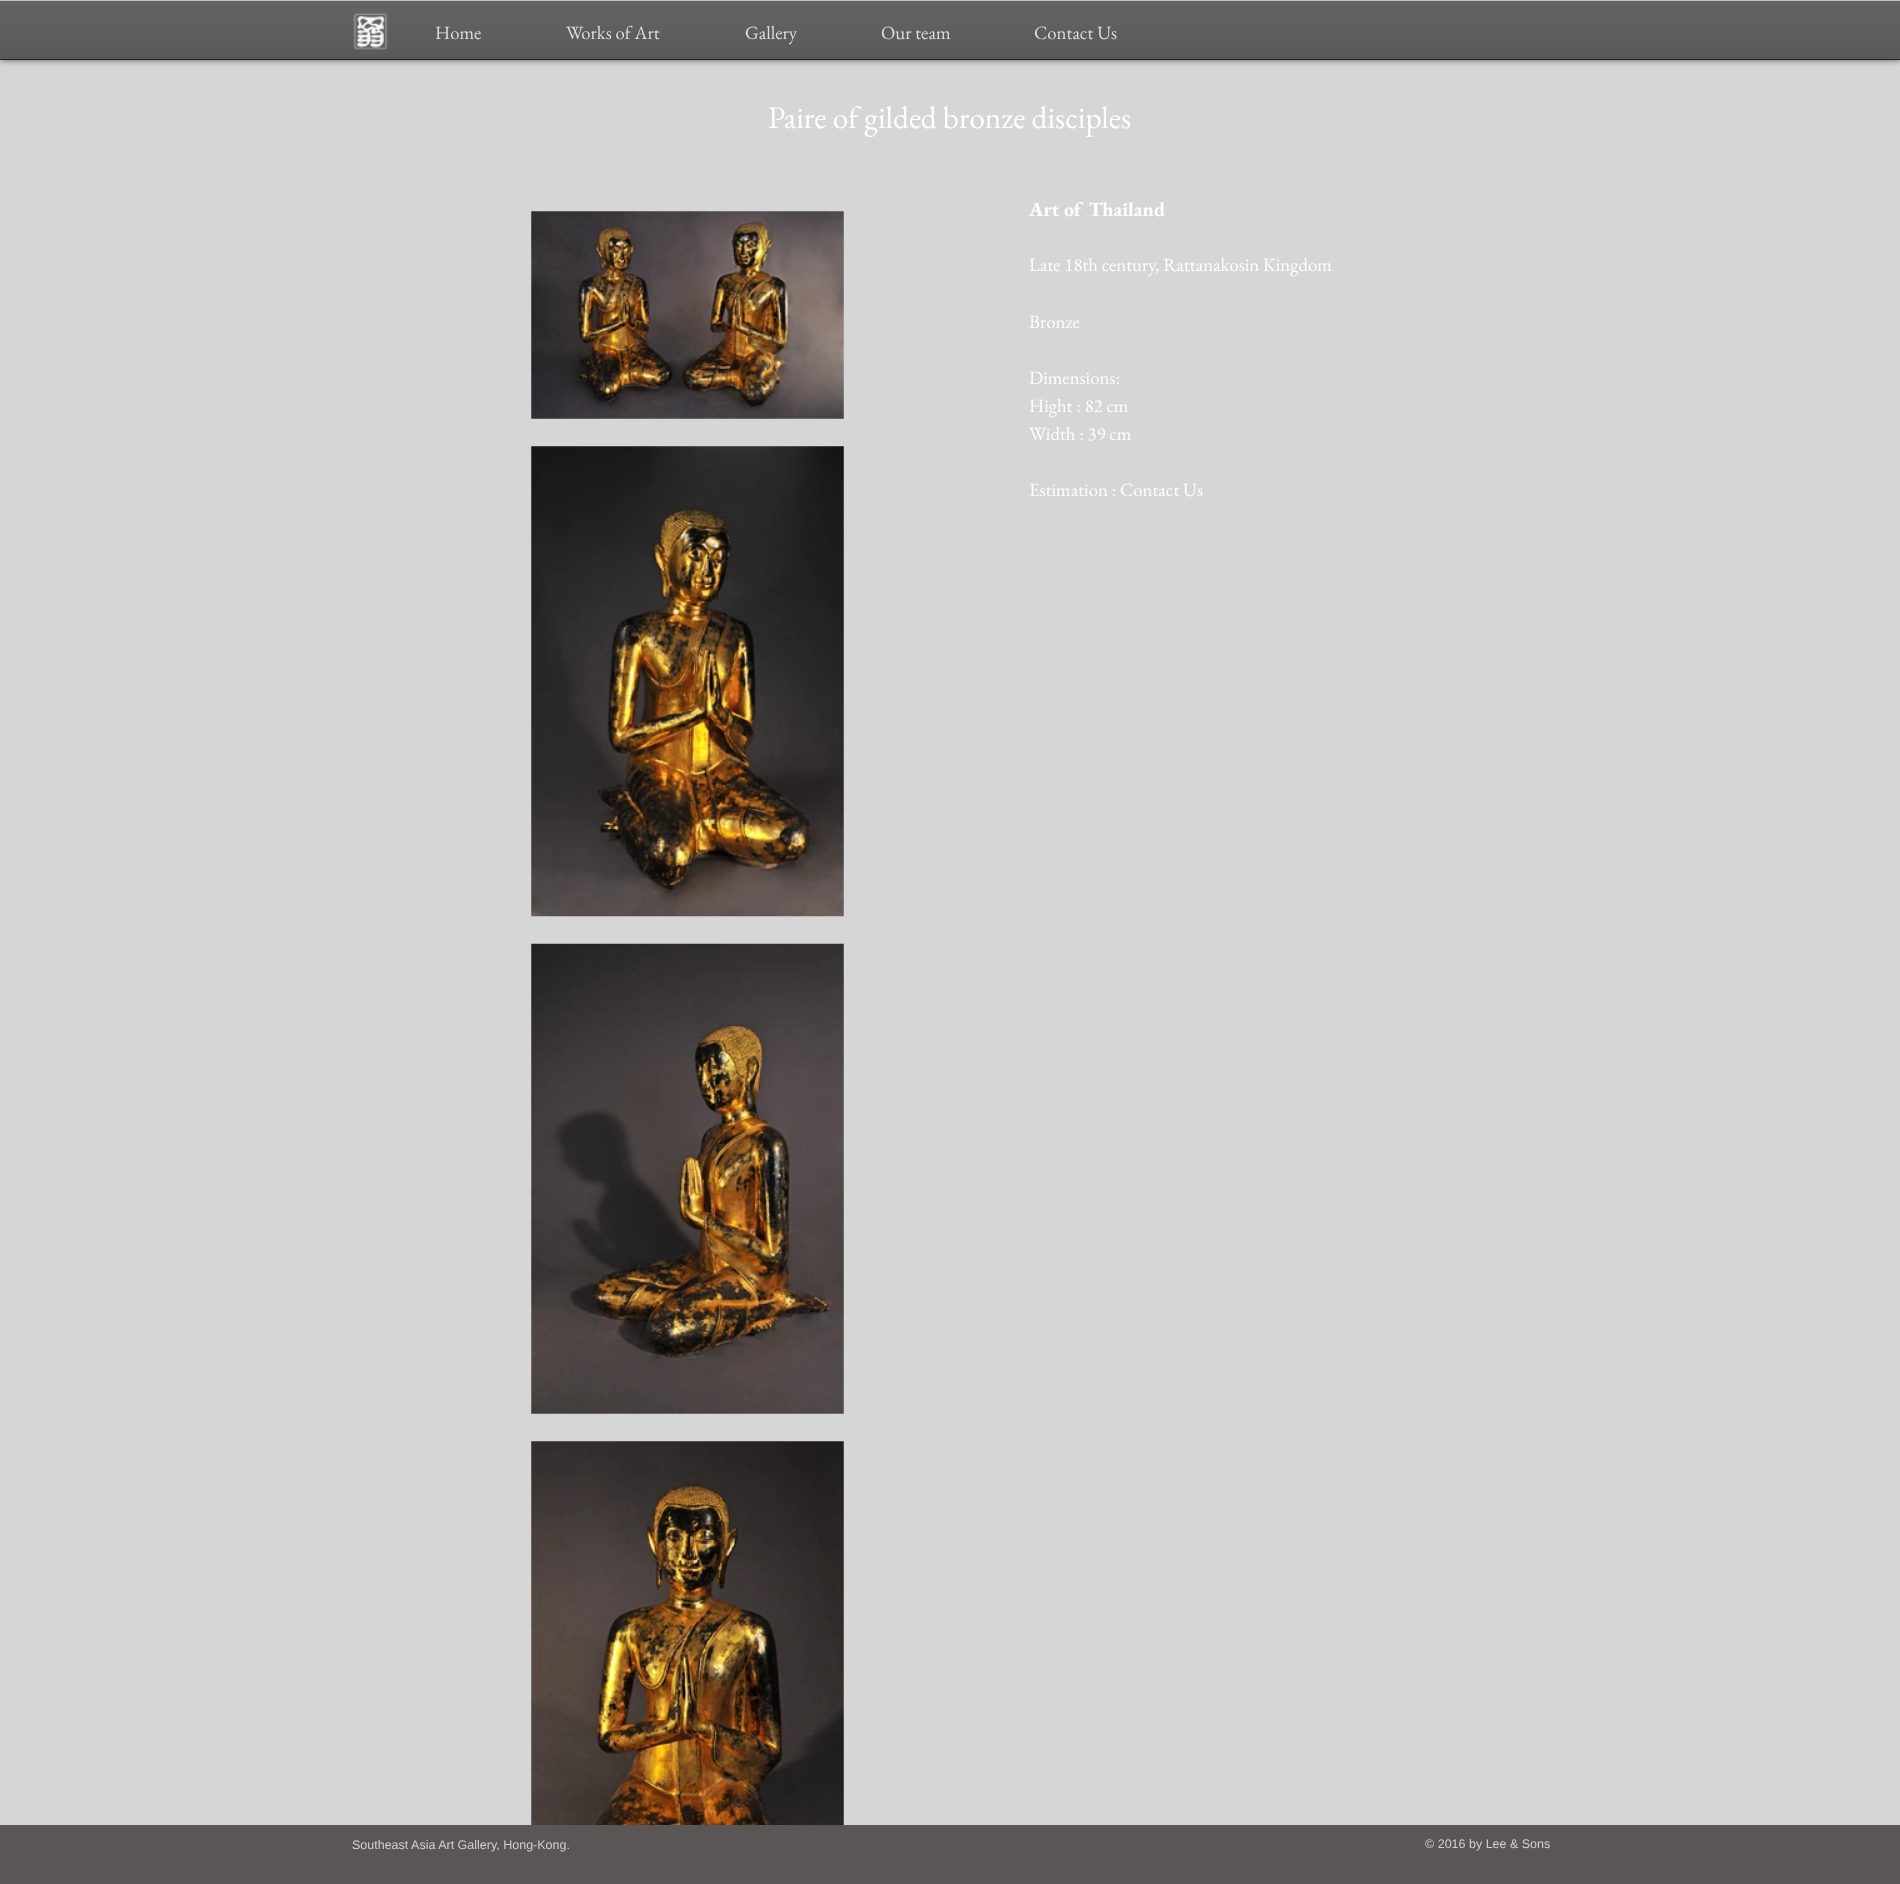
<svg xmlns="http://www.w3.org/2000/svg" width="1900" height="1884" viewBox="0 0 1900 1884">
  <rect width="100%" height="100%" fill="rgb(214,214,214)"/>
  <rect x="0" y="0" width="1900" height="60" fill="rgba(0,0,0,0.6)" filter="blur(3px)"/>
  <rect x="0" y="1" width="1900" height="58" fill="rgb(48,45,45)"/>
  <image x="0" y="1" width="1900" height="58" href="pic1.png"/>
  <rect x="0" y="59" width="1900" height="1" fill="rgb(36,35,35)"/>
  <rect x="0" y="0" width="1900" height="1" fill="rgb(194,193,193)"/>
  <image x="353" y="12" width="35" height="38" href="pic2.png"/>
  <g font-family="EB Garamond" font-size="18.75" fill="rgb(222,222,222)">
    <text x="435" y="39">Home</text>
    <text x="566" y="39">Works of Art</text>
    <text x="745" y="39">Gallery</text>
    <text x="881" y="39">Our team</text>
    <text x="1034" y="39">Contact Us</text>
  </g>
  <text x="768" y="128" font-family="EB Garamond" font-size="31.25" fill="rgb(255,255,255)">Paire of gilded bronze disciples</text>
  <image x="531" y="211" width="313" height="208" href="pic3.png"/>
  <image x="531" y="446" width="313" height="471" href="pic4.png"/>
  <image x="531" y="943" width="313" height="471" href="pic5.png"/>
  <image x="531" y="1441" width="313" height="384" href="pic6.png"/>
  <text x="1029" y="216" font-family="EB Garamond" font-size="20" font-weight="bold" fill="rgb(255,255,255)">Art of Thailand</text>
  <g font-family="EB Garamond" font-size="18.75" fill="rgb(255,255,255)">
    <text x="1029" y="271">Late 18th century, Rattanakosin Kingdom</text>
    <text x="1029" y="328">Bronze</text>
    <text>
      <tspan x="1029" y="384">Dimensions:</tspan>
      <tspan x="1029" y="412">Hight : 82 cm</tspan>
      <tspan x="1029" y="440">Width : 39 cm</tspan>
    </text>
    <text x="1029" y="496">Estimation : Contact Us</text>
  </g>
  <rect x="0" y="1825" width="1900" height="59" fill="rgb(90,86,86)"/>
  <g font-family="Liberation Sans" font-size="12.5" fill="rgb(209,209,209)">
    <text x="352" y="1849">Southeast Asia Art Gallery, Hong-Kong.</text>
    <text x="1425" y="1848">© 2016 by Lee &amp; Sons</text>
  </g>
</svg>
